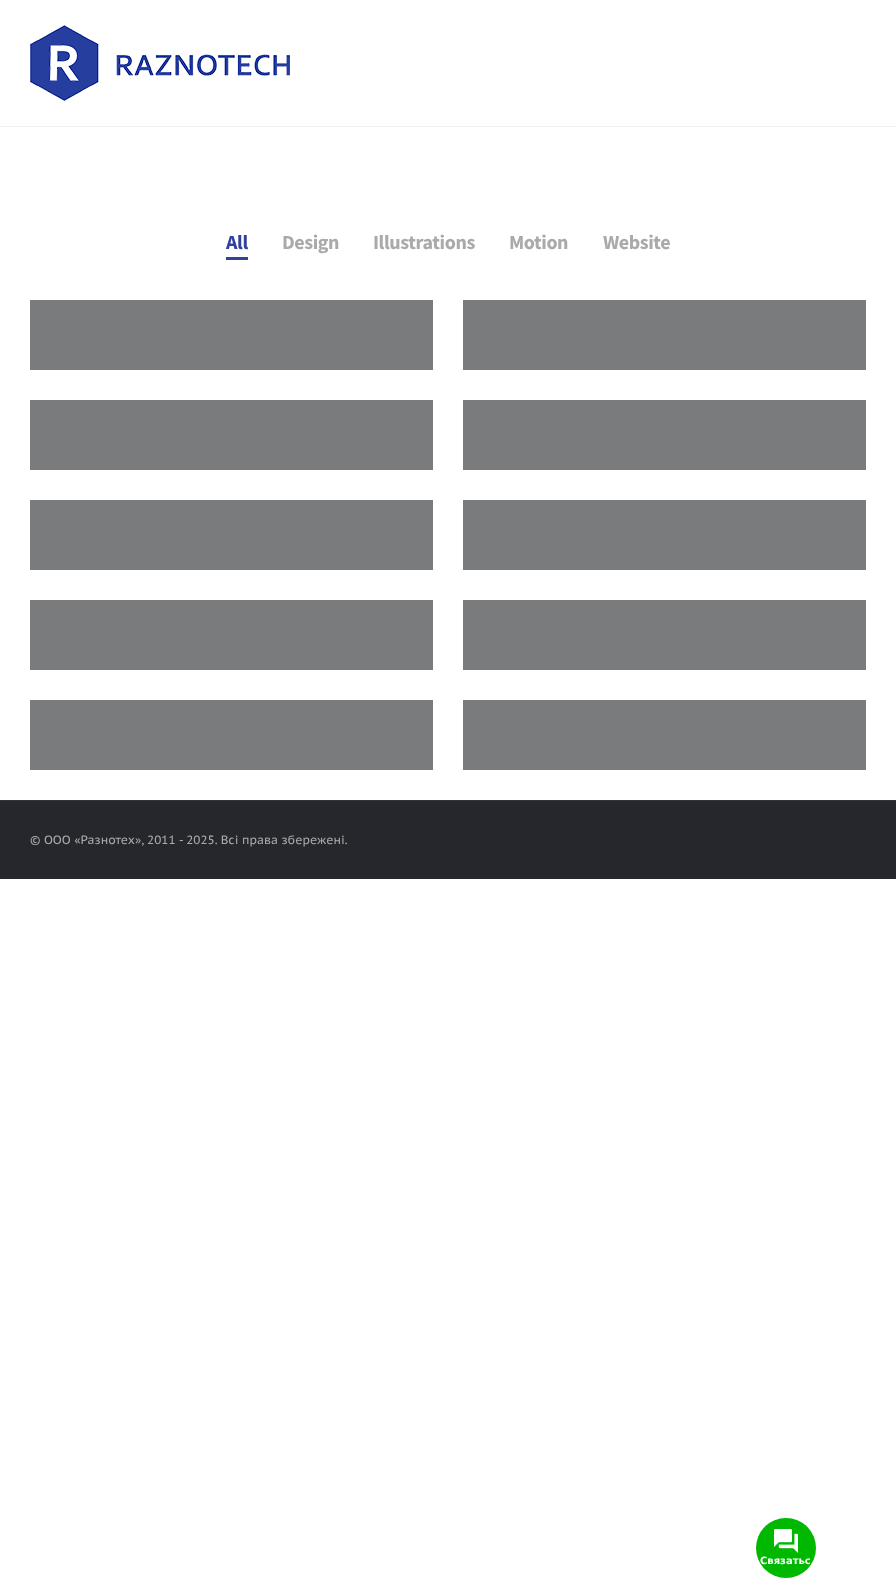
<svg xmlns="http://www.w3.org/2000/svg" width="896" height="1593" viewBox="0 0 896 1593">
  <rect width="100%" height="100%" fill="rgb(255,255,255)"/>
  <rect x="0" y="126" width="896" height="1" fill="rgb(242,242,242)"/>
  <image x="30" y="25" width="260" height="76" href="pic1.png"/>
  <rect x="226" y="257" width="22" height="3" fill="rgb(50,65,155)"/>
  <text x="226" y="249" font-family="Source Sans Pro" font-size="20" font-weight="bold" letter-spacing="-0.4" fill="rgb(50,65,155)">All</text>
  <g font-family="Source Sans Pro" font-size="20" font-weight="bold" letter-spacing="-0.4" fill="rgb(170,170,170)">
    <text x="282" y="249">Design</text>
    <text x="373" y="249">Illustrations</text>
    <text x="509" y="249">Motion</text>
    <text x="603" y="249">Website</text>
  </g>
  <rect x="30" y="300" width="403" height="70" fill="rgb(121,123,125)"/>
  <rect x="463" y="300" width="403" height="70" fill="rgb(121,123,125)"/>
  <rect x="30" y="400" width="403" height="70" fill="rgb(121,123,125)"/>
  <rect x="463" y="400" width="403" height="70" fill="rgb(121,123,125)"/>
  <rect x="30" y="500" width="403" height="70" fill="rgb(121,123,125)"/>
  <rect x="463" y="500" width="403" height="70" fill="rgb(121,123,125)"/>
  <rect x="30" y="600" width="403" height="70" fill="rgb(121,123,125)"/>
  <rect x="463" y="600" width="403" height="70" fill="rgb(121,123,125)"/>
  <rect x="30" y="700" width="403" height="70" fill="rgb(121,123,125)"/>
  <rect x="463" y="700" width="403" height="70" fill="rgb(121,123,125)"/>
  <rect x="0" y="801" width="896" height="78" fill="rgb(38,39,45)"/>
  <rect x="0" y="800" width="896" height="1" fill="rgb(51,52,57)"/>
  <text x="30" y="844" font-family="PT Sans Caption" font-size="12" fill="rgb(170,170,170)">© ООО «Разнотех», 2011 - 2025. Всі права збережені.</text>
  <circle cx="786" cy="1548" r="30" fill="rgb(0,184,0)"/>
  <image x="774" y="1529" width="24" height="24" href="pic2.png"/>
  <text x="760" y="1564" font-family="DejaVu Sans" font-size="10" font-weight="bold" fill="rgb(255,255,255)">Связатьс</text>
</svg>
